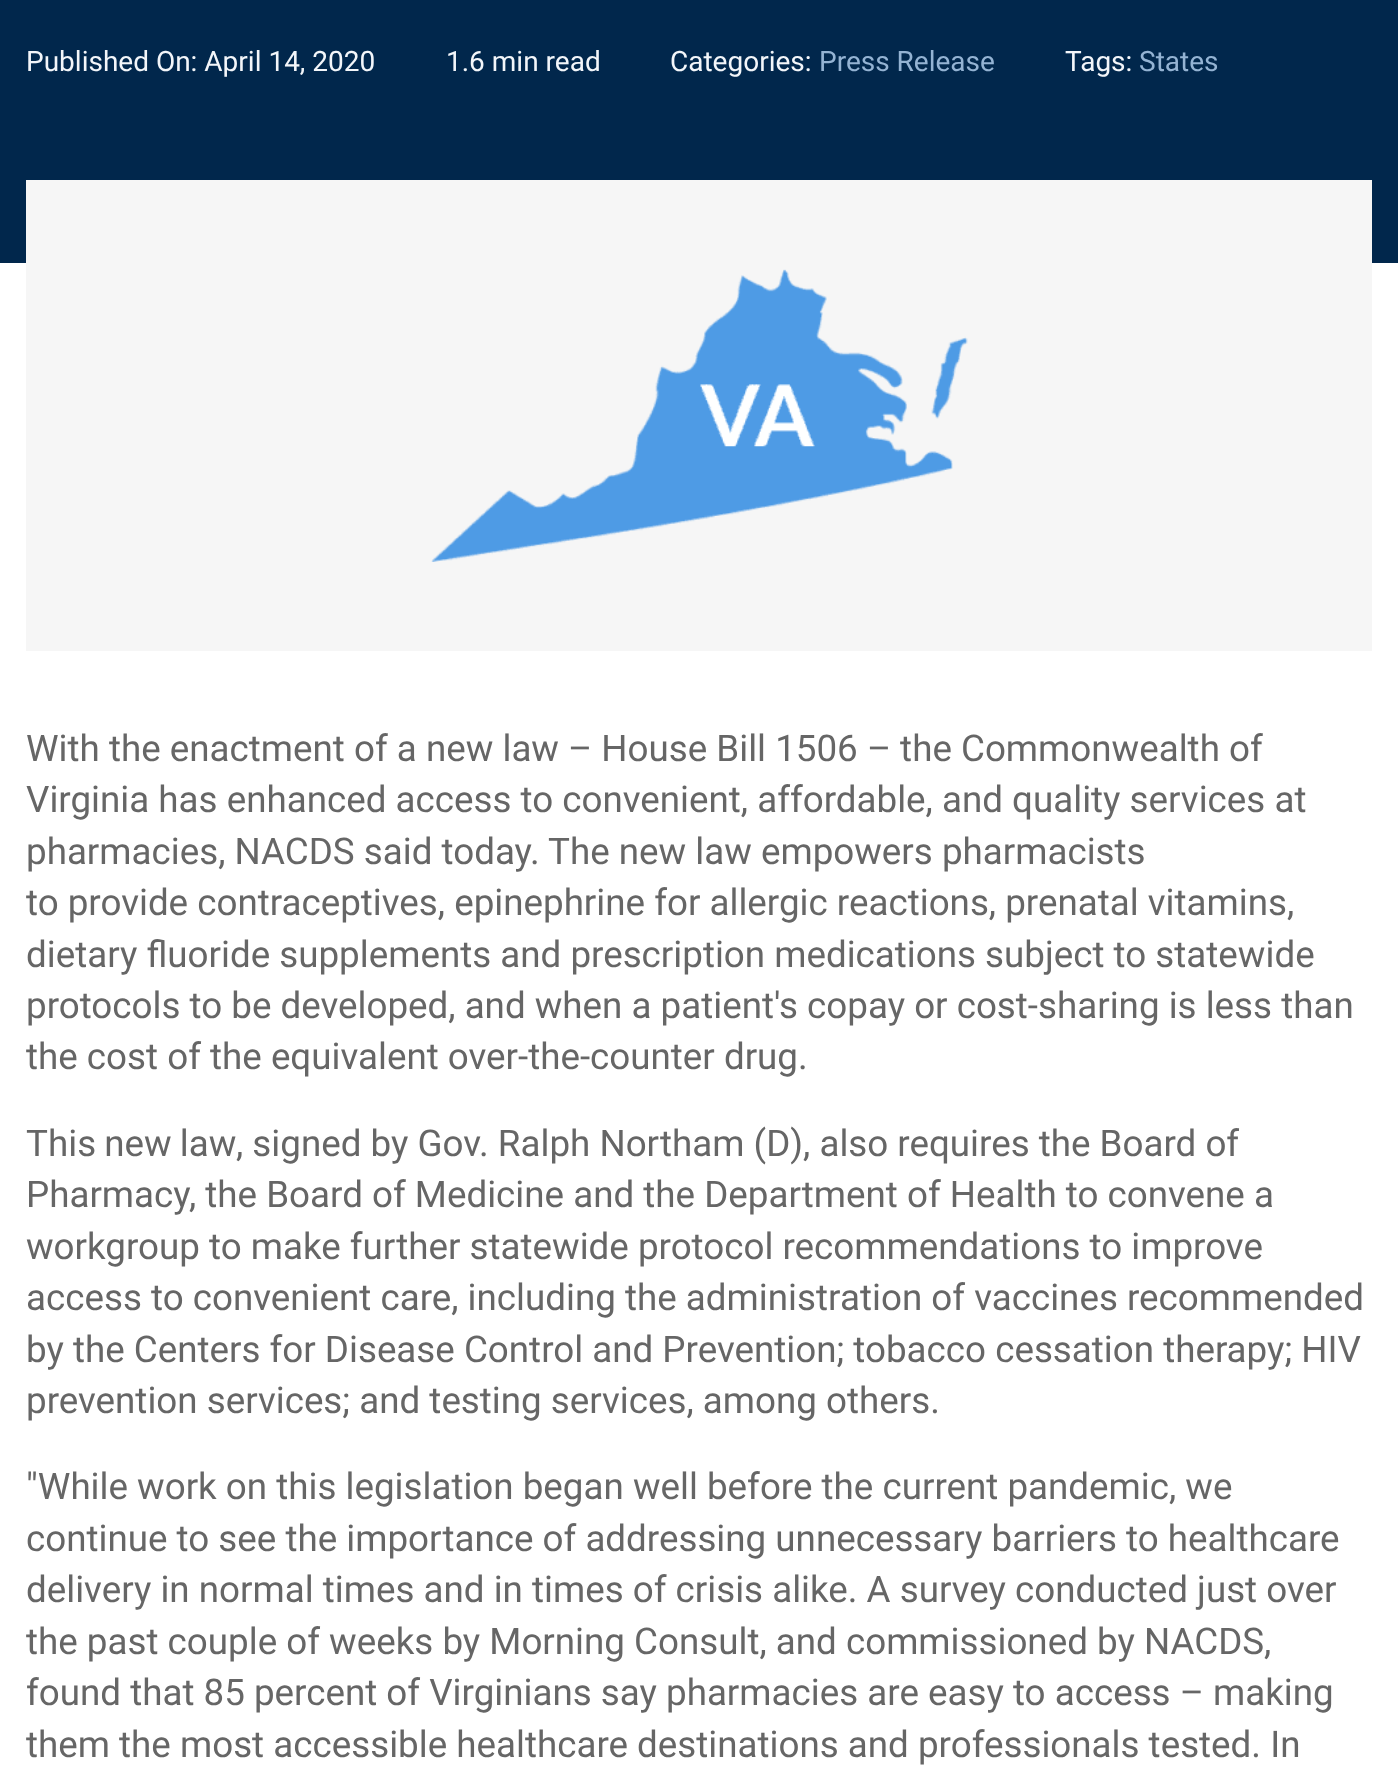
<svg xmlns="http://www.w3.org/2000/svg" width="1398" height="1782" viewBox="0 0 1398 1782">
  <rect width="100%" height="100%" fill="rgb(255,255,255)"/>
  <rect x="0" y="0" width="1398" height="263" fill="rgb(1,39,76)"/>
  <g font-family="Roboto" font-size="28" fill="rgb(243,246,250)">
    <text x="26" y="71">Published On: April 14, 2020</text>
    <text x="446" y="71">1.6 min read</text>
    <text x="670" y="71">Categories:</text>
  </g>
  <text x="819" y="71" font-family="Roboto" font-size="28" fill="rgb(148,179,211)">Press Release</text>
  <text x="1065" y="71" font-family="Roboto" font-size="28" fill="rgb(243,246,250)">Tags:</text>
  <text x="1139" y="71" font-family="Roboto" font-size="28" fill="rgb(148,179,211)">States</text>
  <rect x="26" y="180" width="1346" height="471" fill="rgb(246,246,246)"/>
  <image x="431" y="269" width="537" height="293" href="pic1.png"/>
  <g font-family="Roboto" font-size="36.75" fill="rgb(102,102,102)">
    <text>
      <tspan x="26" y="761">With the enactment of a new law – House Bill 1506 – the Commonwealth of</tspan>
      <tspan x="26" y="812">Virginia has enhanced access to convenient, affordable, and quality services at</tspan>
      <tspan x="26" y="864">pharmacies, NACDS said today.</tspan>
    </text>
    <text x="548" y="864">The new law empowers pharmacists</text>
    <text>
      <tspan x="26" y="915">to provide contraceptives, epinephrine for allergic reactions, prenatal vitamins,</tspan>
      <tspan x="26" y="967">dietary fluoride supplements and prescription medications subject to statewide</tspan>
      <tspan x="26" y="1018">protocols to be developed, and when a patient's copay or cost-sharing is less than</tspan>
      <tspan x="26" y="1069">the cost of the equivalent over-the-counter drug.</tspan>
    </text>
    <text x="26" y="1156">T</text>
    <text x="48" y="1156" word-spacing="-1">his new law</text>
    <text x="236" y="1156">, signed by Gov. Ralph Northam (D), also requires the Board of</text>
    <text x="26" y="1207">Pharmacy</text>
    <text x="189" y="1207">, the Board of Medicine and the Department of Health to convene a</text>
    <text>
      <tspan x="26" y="1259">workgroup to make further statewide protocol recommendations to improve</tspan>
      <tspan x="26" y="1310">access to convenient care, including the administr</tspan>
    </text>
    <text x="840" y="1310">ation of vaccines recommended</text>
    <text>
      <tspan x="26" y="1362">by the Centers for Disease Control and Prevention; tobacco cessation therapy; HIV</tspan>
      <tspan x="26" y="1413">prevention services; and testing services, among others.</tspan>
    </text>
    <text>
      <tspan x="26" y="1499">"While work on this legislation began well before the current pandemic, we</tspan>
      <tspan x="26" y="1551">continue to see the importance of addressing unnecessary barriers to healthcare</tspan>
      <tspan x="26" y="1602">delivery in normal times and in times of crisis alike. A survey conducted just over</tspan>
      <tspan x="26" y="1654">the past couple of weeks by Morning Consult, and commissioned by NACDS,</tspan>
      <tspan x="26" y="1705">found that 85 percent of Virginians say pharmacies are easy to access – making</tspan>
      <tspan x="26" y="1757">them the most accessible healthcare destinations and professionals tested. In</tspan>
    </text>
  </g>
</svg>
